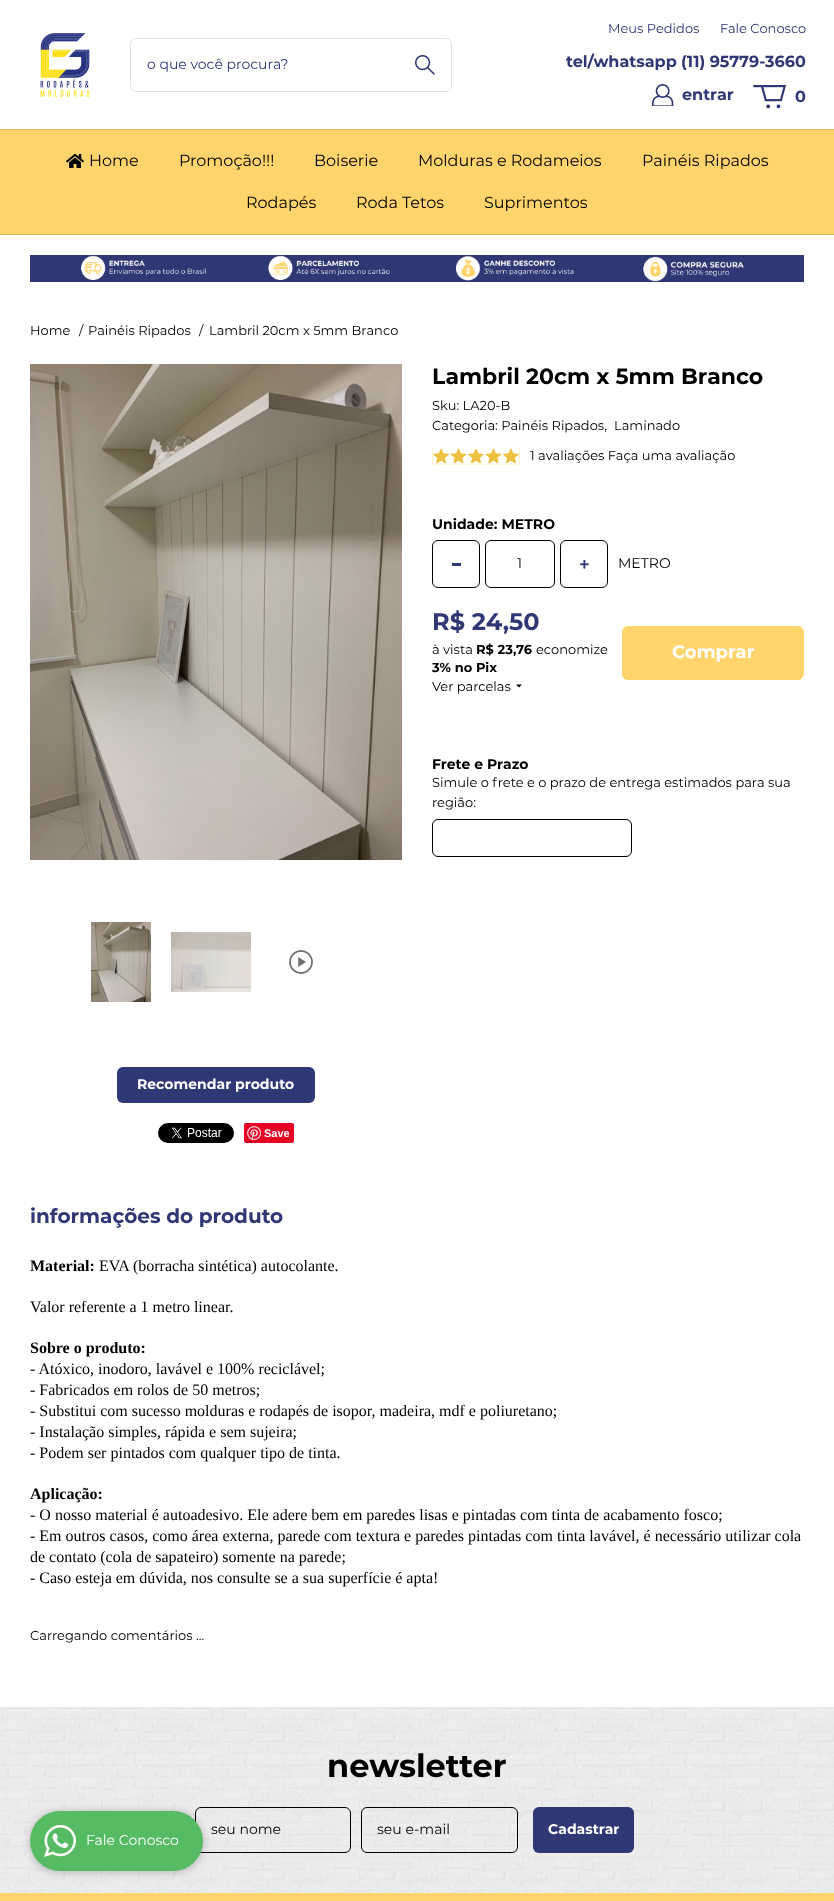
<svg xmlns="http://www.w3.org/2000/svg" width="834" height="1901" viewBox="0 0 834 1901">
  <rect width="100%" height="100%" fill="rgb(255,255,255)"/>
  <image x="40" y="33" width="50" height="64" href="pic1.png"/>
  <rect x="130.5" y="38.5" width="321" height="53" rx="5.5" fill="none" stroke="rgb(224,225,234)"/>
  <text x="147" y="69" font-family="Montserrat" font-size="14" fill="rgb(47,56,116)">o que você procura?</text>
  <image x="415" y="55" width="20" height="20" href="pic2.png"/>
  <g font-family="Montserrat" font-size="13" fill="rgb(47,56,116)">
    <text x="608" y="33">Meus Pedidos</text>
    <text x="720" y="33">Fale Conosco</text>
  </g>
  <g font-family="Montserrat" font-size="16" font-weight="bold" fill="rgb(47,56,116)">
    <text x="566" y="67">tel/whatsapp</text>
    <text x="681" y="67">(11) 95779-3660</text>
  </g>
  <image x="652" y="84" width="22" height="22" href="pic3.png"/>
  <text x="682" y="100" font-family="Montserrat" font-size="16" font-weight="bold" fill="rgb(47,56,116)">entrar</text>
  <image x="753" y="85" width="34" height="24" href="pic4.png"/>
  <text x="795" y="102" font-family="Montserrat" font-size="16" font-weight="bold" fill="rgb(47,56,116)">0</text>
  <rect x="0" y="130" width="834" height="104" fill="rgb(255,212,109)"/>
  <rect x="0" y="129" width="834" height="1" fill="rgb(217,180,93)"/>
  <rect x="0" y="234" width="834" height="1" fill="rgb(217,180,93)"/>
  <image x="66" y="154" width="18" height="14" href="pic5.png"/>
  <g font-family="Montserrat" font-size="16" fill="rgb(0,0,0)">
    <text x="89" y="166">Home</text>
    <text x="179" y="166">Promoção!!!</text>
    <text x="314" y="166">Boiserie</text>
    <text x="418" y="166">Molduras e Rodameios</text>
    <text x="642" y="166">Painéis Ripados</text>
    <text x="246" y="208">Rodapés</text>
    <text x="356" y="208">Roda Tetos</text>
    <text x="484" y="208">Suprimentos</text>
  </g>
  <image x="30" y="255" width="774" height="27" href="pic6.png"/>
  <g font-family="Montserrat" font-size="13" fill="rgb(0,0,0)">
    <text x="30" y="335">Home</text>
    <text x="79" y="335">/</text>
    <text x="88" y="335">Painéis Ripados</text>
    <text x="199" y="335">/</text>
    <text x="209" y="335">Lambril 20cm x 5mm Branco</text>
  </g>
  <text x="432" y="384" font-family="Montserrat" font-size="22" font-weight="bold" fill="rgb(0,0,0)">Lambril 20cm x 5mm Branco</text>
  <g font-family="Montserrat" font-size="13" fill="rgb(0,0,0)">
    <text>
      <tspan x="432" y="410">Sku: LA20-B</tspan>
      <tspan x="432" y="430">Categoria: Painéis Ripados,</tspan>
    </text>
    <text x="614" y="430">Laminado</text>
  </g>
  <rect x="432" y="447" width="88" height="18" fill="rgb(238,193,66)"/>
  <image x="432" y="447" width="88" height="18" href="pic7.png"/>
  <text x="530" y="460" font-family="Montserrat" font-size="13" fill="rgb(0,0,0)">1 avaliações Faça uma avaliação</text>
  <text x="432" y="529" font-family="Montserrat" font-size="14" font-weight="bold" fill="rgb(0,0,0)">Unidade: METRO</text>
  <rect x="432.5" y="540.5" width="47" height="47" rx="5.5" fill="none" stroke="rgb(0,0,0)"/>
  <rect x="452" y="563" width="9" height="3" fill="rgb(47,56,116)"/>
  <rect x="485.5" y="540.5" width="69" height="47" rx="5.5" fill="none" stroke="rgb(0,0,0)"/>
  <text x="517" y="568" font-family="Montserrat" font-size="14" fill="rgb(0,0,0)">1</text>
  <rect x="560.5" y="540.5" width="47" height="47" rx="5.5" fill="none" stroke="rgb(0,0,0)"/>
  <image x="580" y="559" width="9" height="10" href="pic8.png"/>
  <text x="618" y="568" font-family="Montserrat" font-size="14" fill="rgb(0,0,0)">METRO</text>
  <text x="432" y="630" font-family="Montserrat" font-size="24" font-weight="bold" fill="rgb(47,56,116)">R$ 24,50</text>
  <text x="432" y="654" font-family="Montserrat" font-size="13" fill="rgb(0,0,0)">à vista</text>
  <text x="476" y="654" font-family="Montserrat" font-size="13" font-weight="bold" fill="rgb(0,0,0)">R$ 23,76</text>
  <text x="536" y="654" font-family="Montserrat" font-size="13" fill="rgb(0,0,0)">economize</text>
  <text x="432" y="672" font-family="Montserrat" font-size="13" font-weight="bold" fill="rgb(0,0,0)">3% no Pix</text>
  <text x="432" y="691" font-family="Montserrat" font-size="13" fill="rgb(0,0,0)">Ver parcelas</text>
  <path d="M516 684.5H522L519 687.5Z" fill="rgb(0,0,0)"/>
  <rect x="622" y="626" width="182" height="54" rx="6" fill="rgb(255,212,109)"/>
  <text x="672" y="658" font-family="Montserrat" font-size="18" font-weight="bold" fill="rgb(255,255,255)">Comprar</text>
  <text x="432" y="769" font-family="Montserrat" font-size="14" font-weight="bold" fill="rgb(0,0,0)">Frete e Prazo</text>
  <g font-family="Montserrat" font-size="13" fill="rgb(0,0,0)">
    <text>
      <tspan x="432" y="787">Simule o frete e o prazo de entrega estimados para sua</tspan>
      <tspan x="432" y="807">região:</tspan>
    </text>
  </g>
  <rect x="432.5" y="819.5" width="199" height="37" rx="5.5" fill="none" stroke="rgb(0,0,0)"/>
  <image x="30" y="364" width="372" height="496" href="pic9.png"/>
  <image x="90" y="922" width="62" height="80" href="pic10.png"/>
  <image x="171" y="932" width="80" height="60" href="pic11.png"/>
  <image x="289" y="950" width="24" height="24" href="pic12.png"/>
  <rect x="117" y="1067" width="198" height="36" rx="6" fill="rgb(47,56,116)"/>
  <text x="137" y="1089" font-family="Montserrat" font-size="14" font-weight="bold" fill="rgb(255,255,255)">Recomendar produto</text>
  <image x="158" y="1123" width="76" height="20" href="pic13.png"/>
  <rect x="244" y="1123" width="50" height="20" rx="2" fill="rgb(230,0,35)"/>
  <image x="247" y="1126" width="14" height="14" href="pic14.png"/>
  <text x="264" y="1137" font-family="Liberation Sans" font-size="11" font-weight="bold" fill="rgb(255,255,255)">Save</text>
  <text x="30" y="1223" font-family="Montserrat" font-size="20" font-weight="bold" fill="rgb(47,56,116)">informações do produto</text>
  <text x="30" y="1271" font-family="Liberation Serif" font-size="16" font-weight="bold" fill="rgb(0,0,0)">Material:</text>
  <g font-family="Liberation Serif" font-size="16" fill="rgb(0,0,0)">
    <text x="99" y="1271">EVA (borracha sintética) autocolante.</text>
    <text x="30" y="1312">Valor referente a 1 metro linear.</text>
  </g>
  <text x="30" y="1353" font-family="Liberation Serif" font-size="16" font-weight="bold" fill="rgb(0,0,0)">Sobre o produto:</text>
  <g font-family="Liberation Serif" font-size="16" fill="rgb(0,0,0)">
    <text>
      <tspan x="30" y="1374">- Atóxico, inodoro, lavável e 100% reciclável;</tspan>
      <tspan x="30" y="1395">- Fabricados em rolos de 50 metros;</tspan>
      <tspan x="30" y="1416">- Substitui com sucesso molduras e rodapés de isopor, madeira, mdf e poliuretano;</tspan>
      <tspan x="30" y="1437">- Instalação simples, rápida e sem sujeira;</tspan>
      <tspan x="30" y="1458">- Podem ser pintados com qualquer tipo de tinta.</tspan>
    </text>
  </g>
  <text x="30" y="1499" font-family="Liberation Serif" font-size="16" font-weight="bold" fill="rgb(0,0,0)">Aplicação:</text>
  <g font-family="Liberation Serif" font-size="16" fill="rgb(0,0,0)">
    <text>
      <tspan x="30" y="1520">- O nosso material é autoadesivo. Ele adere bem em paredes lisas e pintadas com tinta de acabamento fosco;</tspan>
      <tspan x="30" y="1541">- Em outros casos, como área externa, parede com textura e paredes pintadas com tinta lavável, é necessário utilizar cola</tspan>
      <tspan x="30" y="1562">de contato (cola de sapateiro) somente na parede;</tspan>
      <tspan x="30" y="1583">- Caso esteja em dúvida, nos consulte se a sua superfície é apta!</tspan>
    </text>
  </g>
  <text x="30" y="1640" font-family="Montserrat" font-size="13" fill="rgb(0,0,0)">Carregando comentários ...</text>
  <image x="0" y="1707" width="834" height="186" href="pic15.png"/>
  <text x="327" y="1777" font-family="Montserrat" font-size="32" font-weight="bold" fill="rgb(0,0,0)">newsletter</text>
  <rect x="195.5" y="1807.5" width="155" height="45" rx="5.5" fill="none" stroke="rgb(0,0,0)"/>
  <text x="211" y="1834" font-family="Montserrat" font-size="14" fill="rgb(0,0,0)">seu nome</text>
  <rect x="361.5" y="1807.5" width="156" height="45" rx="5.5" fill="none" stroke="rgb(0,0,0)"/>
  <text x="377" y="1834" font-family="Montserrat" font-size="14" fill="rgb(0,0,0)">seu e-mail</text>
  <rect x="533" y="1807" width="101" height="46" rx="6" fill="rgb(47,56,116)"/>
  <text x="548" y="1834" font-family="Montserrat" font-size="14" font-weight="bold" fill="rgb(255,255,255)">Cadastrar</text>
  <rect x="30" y="1812" width="173" height="60" rx="30" fill="rgba(0,0,0,0.25)" filter="blur(4px)"/>
  <rect x="30" y="1811" width="173" height="60" rx="30" fill="rgb(87,187,99)"/>
  <image x="44" y="1825" width="32" height="32" href="pic16.png"/>
  <text x="86" y="1845" font-family="Montserrat" font-size="14" fill="rgb(255,255,255)">Fale Conosco</text>
  <rect x="0" y="1893" width="834" height="8" fill="rgb(255,212,109)"/>
</svg>
